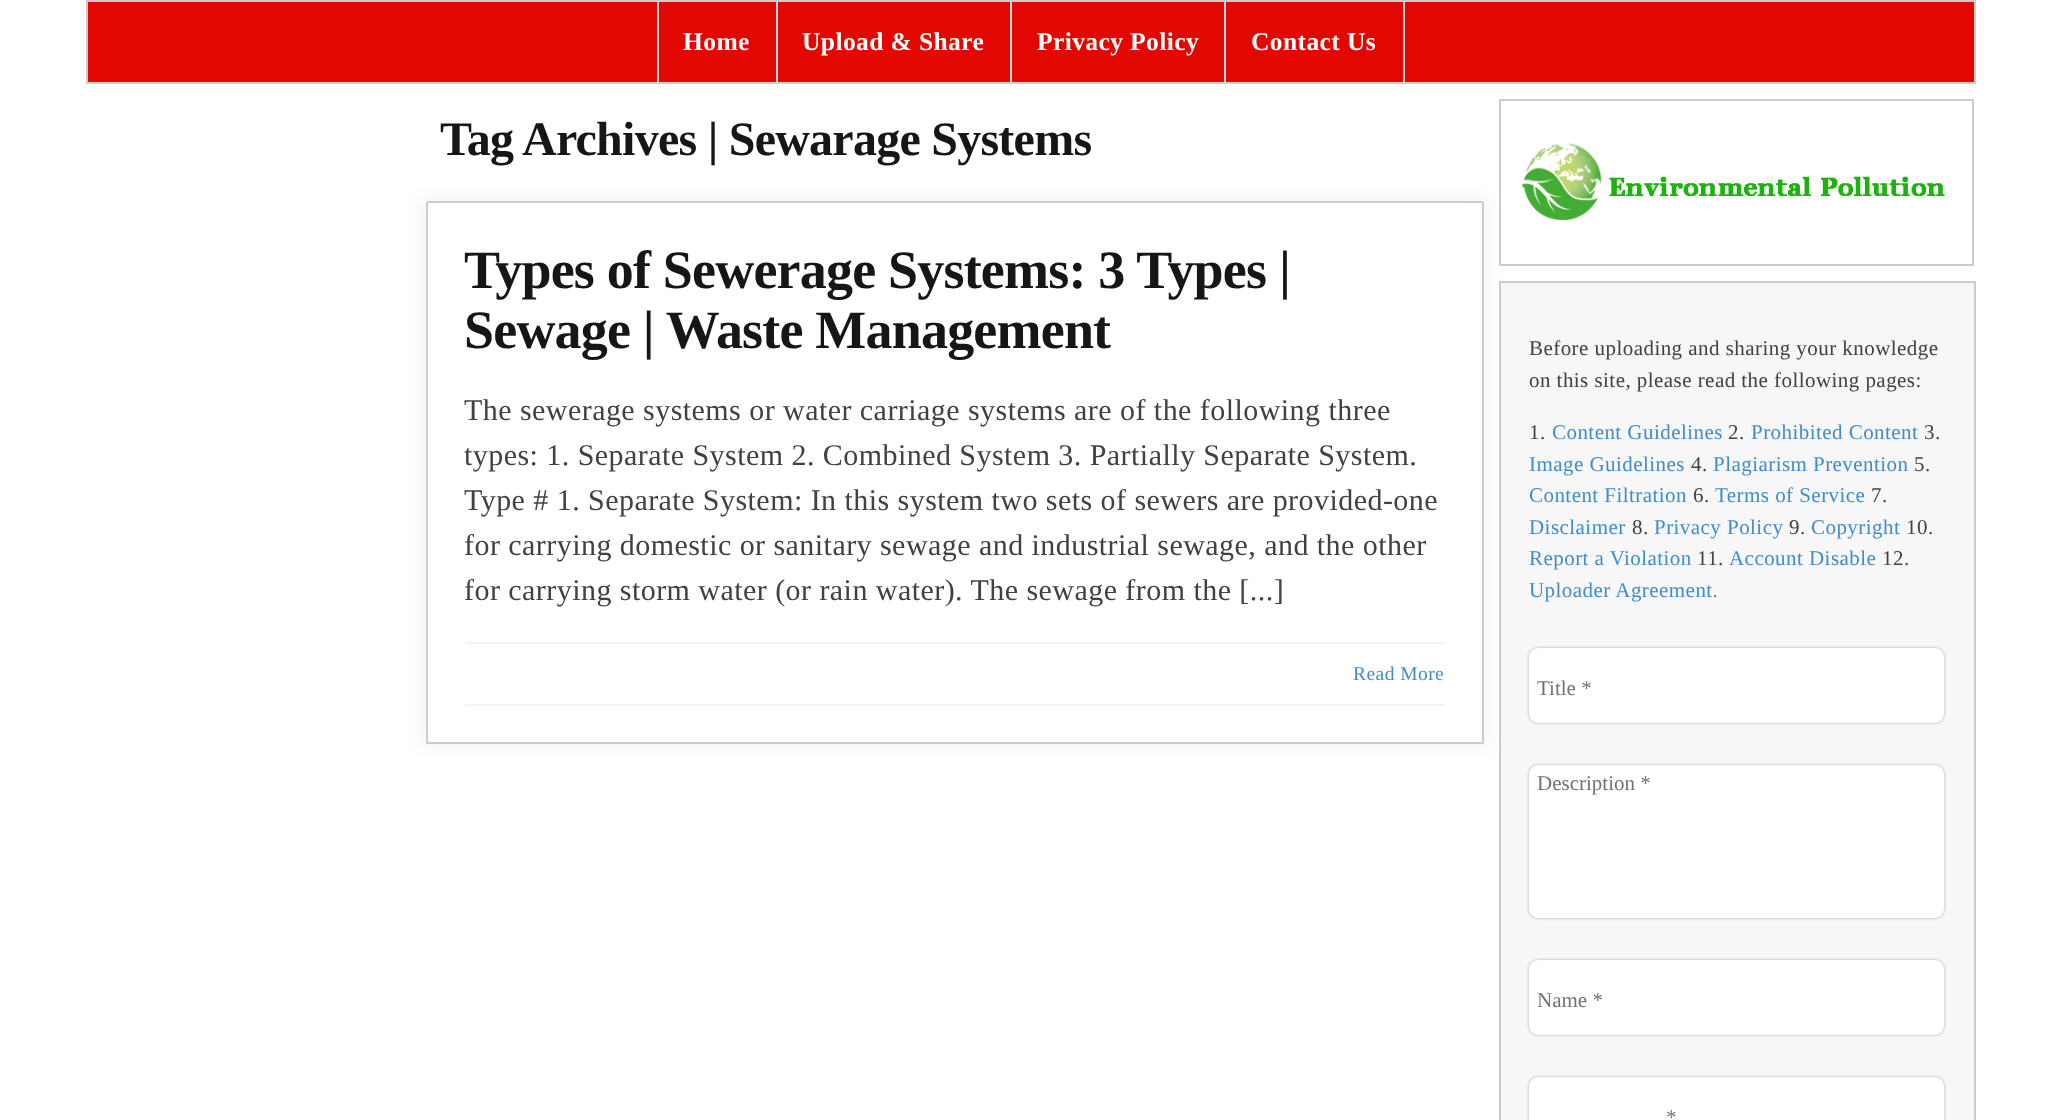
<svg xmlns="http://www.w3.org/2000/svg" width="2059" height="1120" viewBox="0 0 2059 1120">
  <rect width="100%" height="100%" fill="rgb(255,255,255)"/>
  <rect x="87" y="1" width="1888" height="82" fill="rgb(226,7,0)" stroke="rgb(204,204,204)" stroke-width="2"/>
  <rect x="776" y="2" width="2" height="81" fill="rgb(219,219,219)"/>
  <rect x="657" y="2" width="2" height="81" fill="rgb(219,219,219)"/>
  <text x="683" y="50" font-family="Liberation Serif" font-size="25.5" font-weight="bold" letter-spacing="0.4" fill="rgb(255,255,255)">Home</text>
  <rect x="1010" y="2" width="2" height="81" fill="rgb(219,219,219)"/>
  <text x="802" y="50" font-family="Liberation Serif" font-size="25.5" font-weight="bold" letter-spacing="0.4" fill="rgb(255,255,255)">Upload &amp; Share</text>
  <rect x="1224" y="2" width="2" height="81" fill="rgb(219,219,219)"/>
  <text x="1037" y="50" font-family="Liberation Serif" font-size="25.5" font-weight="bold" letter-spacing="0.4" fill="rgb(255,255,255)">Privacy Policy</text>
  <rect x="1403" y="2" width="2" height="81" fill="rgb(219,219,219)"/>
  <text x="1251" y="50" font-family="Liberation Serif" font-size="25.5" font-weight="bold" letter-spacing="0.4" fill="rgb(255,255,255)">Contact Us</text>
  <text x="440" y="155" font-family="Liberation Serif" font-size="48" font-weight="bold" letter-spacing="-0.75" fill="rgb(20,22,23)">Tag Archives | Sewarage Systems</text>
  <rect x="423" y="198" width="1064" height="549" rx="6" fill="rgba(0,0,0,0.05)" filter="blur(9.5px)"/>
  <path d="M429 202H1481C1482 202 1483 203 1483 204V743H427V204C427 203 428 202 429 202Z" fill="rgb(255,255,255)" stroke="rgb(204,204,204)" stroke-width="2"/>
  <g font-family="Liberation Serif" font-size="54" font-weight="bold" letter-spacing="-0.8" fill="rgb(20,22,23)">
    <text>
      <tspan x="464" y="288">Types of Sewerage Systems: 3 Types |</tspan>
      <tspan x="464" y="348">Sewage | Waste Management</tspan>
    </text>
  </g>
  <g font-family="Liberation Serif" font-size="30" letter-spacing="0.45" fill="rgb(66,65,66)">
    <text>
      <tspan x="464" y="420">The sewerage systems or water carriage systems are of the following three</tspan>
      <tspan x="464" y="465">types: 1. Separate System 2. Combined System 3. Partially Separate System.</tspan>
      <tspan x="464" y="510">Type # 1. Separate System: In this system two sets of sewers are provided-one</tspan>
      <tspan x="464" y="555">for carrying domestic or sanitary sewage and industrial sewage, and the other</tspan>
      <tspan x="464" y="600">for carrying storm water (or rain water). The sewage from the [...]</tspan>
    </text>
  </g>
  <rect x="465" y="642" width="980" height="2" fill="rgb(242,243,245)"/>
  <rect x="465" y="704" width="980" height="2" fill="rgb(242,243,245)"/>
  <text x="1353" y="680" font-family="Liberation Serif" font-size="19.5" letter-spacing="0.45" fill="rgb(66,139,202)">Read More</text>
  <rect x="1500" y="100" width="473" height="165" fill="none" stroke="rgb(204,204,204)" stroke-width="2"/>
  <image x="1522" y="143" width="423" height="78" href="pic1.png"/>
  <rect x="1500" y="282" width="475" height="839" fill="rgb(247,247,247)" stroke="rgb(204,204,204)" stroke-width="2"/>
  <g font-family="Liberation Serif" font-size="21" letter-spacing="0.45" fill="rgb(66,65,66)">
    <text>
      <tspan x="1529" y="355">Before uploading and sharing your knowledge</tspan>
      <tspan x="1529" y="387">on this site, please read the following pages:</tspan>
    </text>
    <text x="1529" y="439">1.</text>
  </g>
  <text x="1552" y="439" font-family="Liberation Serif" font-size="21" letter-spacing="0.45" fill="rgb(66,139,202)">Content Guidelines</text>
  <text x="1728" y="439" font-family="Liberation Serif" font-size="21" letter-spacing="0.45" fill="rgb(66,65,66)">2.</text>
  <text x="1751" y="439" font-family="Liberation Serif" font-size="21" letter-spacing="0.45" fill="rgb(66,139,202)">Prohibited Content</text>
  <text x="1924" y="439" font-family="Liberation Serif" font-size="21" letter-spacing="0.45" fill="rgb(66,65,66)">3.</text>
  <text x="1529" y="471" font-family="Liberation Serif" font-size="21" letter-spacing="0.45" fill="rgb(66,139,202)">Image Guidelines</text>
  <text x="1691" y="471" font-family="Liberation Serif" font-size="21" letter-spacing="0.45" fill="rgb(66,65,66)">4.</text>
  <text x="1713" y="471" font-family="Liberation Serif" font-size="21" letter-spacing="0.45" fill="rgb(66,139,202)">Plagiarism Prevention</text>
  <text x="1914" y="471" font-family="Liberation Serif" font-size="21" letter-spacing="0.45" fill="rgb(66,65,66)">5.</text>
  <text x="1529" y="502" font-family="Liberation Serif" font-size="21" letter-spacing="0.45" fill="rgb(66,139,202)">Content Filtration</text>
  <text x="1693" y="502" font-family="Liberation Serif" font-size="21" letter-spacing="0.45" fill="rgb(66,65,66)">6.</text>
  <text x="1715" y="502" font-family="Liberation Serif" font-size="21" letter-spacing="0.45" fill="rgb(66,139,202)">Terms of Service</text>
  <text x="1871" y="502" font-family="Liberation Serif" font-size="21" letter-spacing="0.45" fill="rgb(66,65,66)">7.</text>
  <text x="1529" y="534" font-family="Liberation Serif" font-size="21" letter-spacing="0.45" fill="rgb(66,139,202)">Disclaimer</text>
  <text x="1632" y="534" font-family="Liberation Serif" font-size="21" letter-spacing="0.45" fill="rgb(66,65,66)">8.</text>
  <text x="1654" y="534" font-family="Liberation Serif" font-size="21" letter-spacing="0.45" fill="rgb(66,139,202)">Privacy Policy</text>
  <text x="1789" y="534" font-family="Liberation Serif" font-size="21" letter-spacing="0.45" fill="rgb(66,65,66)">9.</text>
  <text x="1811" y="534" font-family="Liberation Serif" font-size="21" letter-spacing="0.45" fill="rgb(66,139,202)">Copyright</text>
  <text x="1906" y="534" font-family="Liberation Serif" font-size="21" letter-spacing="0.45" fill="rgb(66,65,66)">10.</text>
  <text x="1529" y="565" font-family="Liberation Serif" font-size="21" letter-spacing="0.45" fill="rgb(66,139,202)">Report a Violation</text>
  <text x="1697" y="565" font-family="Liberation Serif" font-size="21" letter-spacing="0.45" fill="rgb(66,65,66)">11.</text>
  <text x="1729" y="565" font-family="Liberation Serif" font-size="21" letter-spacing="0.45" fill="rgb(66,139,202)">Account Disable</text>
  <text x="1882" y="565" font-family="Liberation Serif" font-size="21" letter-spacing="0.45" fill="rgb(66,65,66)">12.</text>
  <text x="1529" y="597" font-family="Liberation Serif" font-size="21" letter-spacing="0.45" fill="rgb(66,139,202)">Uploader Agreement.</text>
  <rect x="1529" y="648" width="415" height="75" rx="9" fill="rgb(170,170,170)" filter="blur(1.5px)"/>
  <rect x="1529" y="648" width="415" height="75" rx="9" fill="rgb(255,255,255)"/>
  <text x="1537" y="695" font-family="Liberation Serif" font-size="21" fill="rgb(114,114,114)">Title *</text>
  <rect x="1529" y="765" width="415" height="153" rx="9" fill="rgb(170,170,170)" filter="blur(1.5px)"/>
  <rect x="1529" y="765" width="415" height="153" rx="9" fill="rgb(255,255,255)"/>
  <text x="1537" y="790" font-family="Liberation Serif" font-size="21" fill="rgb(114,114,114)">Description *</text>
  <rect x="1529" y="960" width="415" height="75" rx="9" fill="rgb(170,170,170)" filter="blur(1.5px)"/>
  <rect x="1529" y="960" width="415" height="75" rx="9" fill="rgb(255,255,255)"/>
  <text x="1537" y="1007" font-family="Liberation Serif" font-size="21" fill="rgb(114,114,114)">Name *</text>
  <rect x="1529" y="1077" width="415" height="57" rx="9" fill="rgb(170,170,170)" filter="blur(1.5px)"/>
  <rect x="1529" y="1077" width="415" height="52" rx="9" fill="rgb(255,255,255)"/>
  <text x="1666" y="1124" font-family="Liberation Serif" font-size="21" fill="rgb(114,114,114)">*</text>
</svg>
